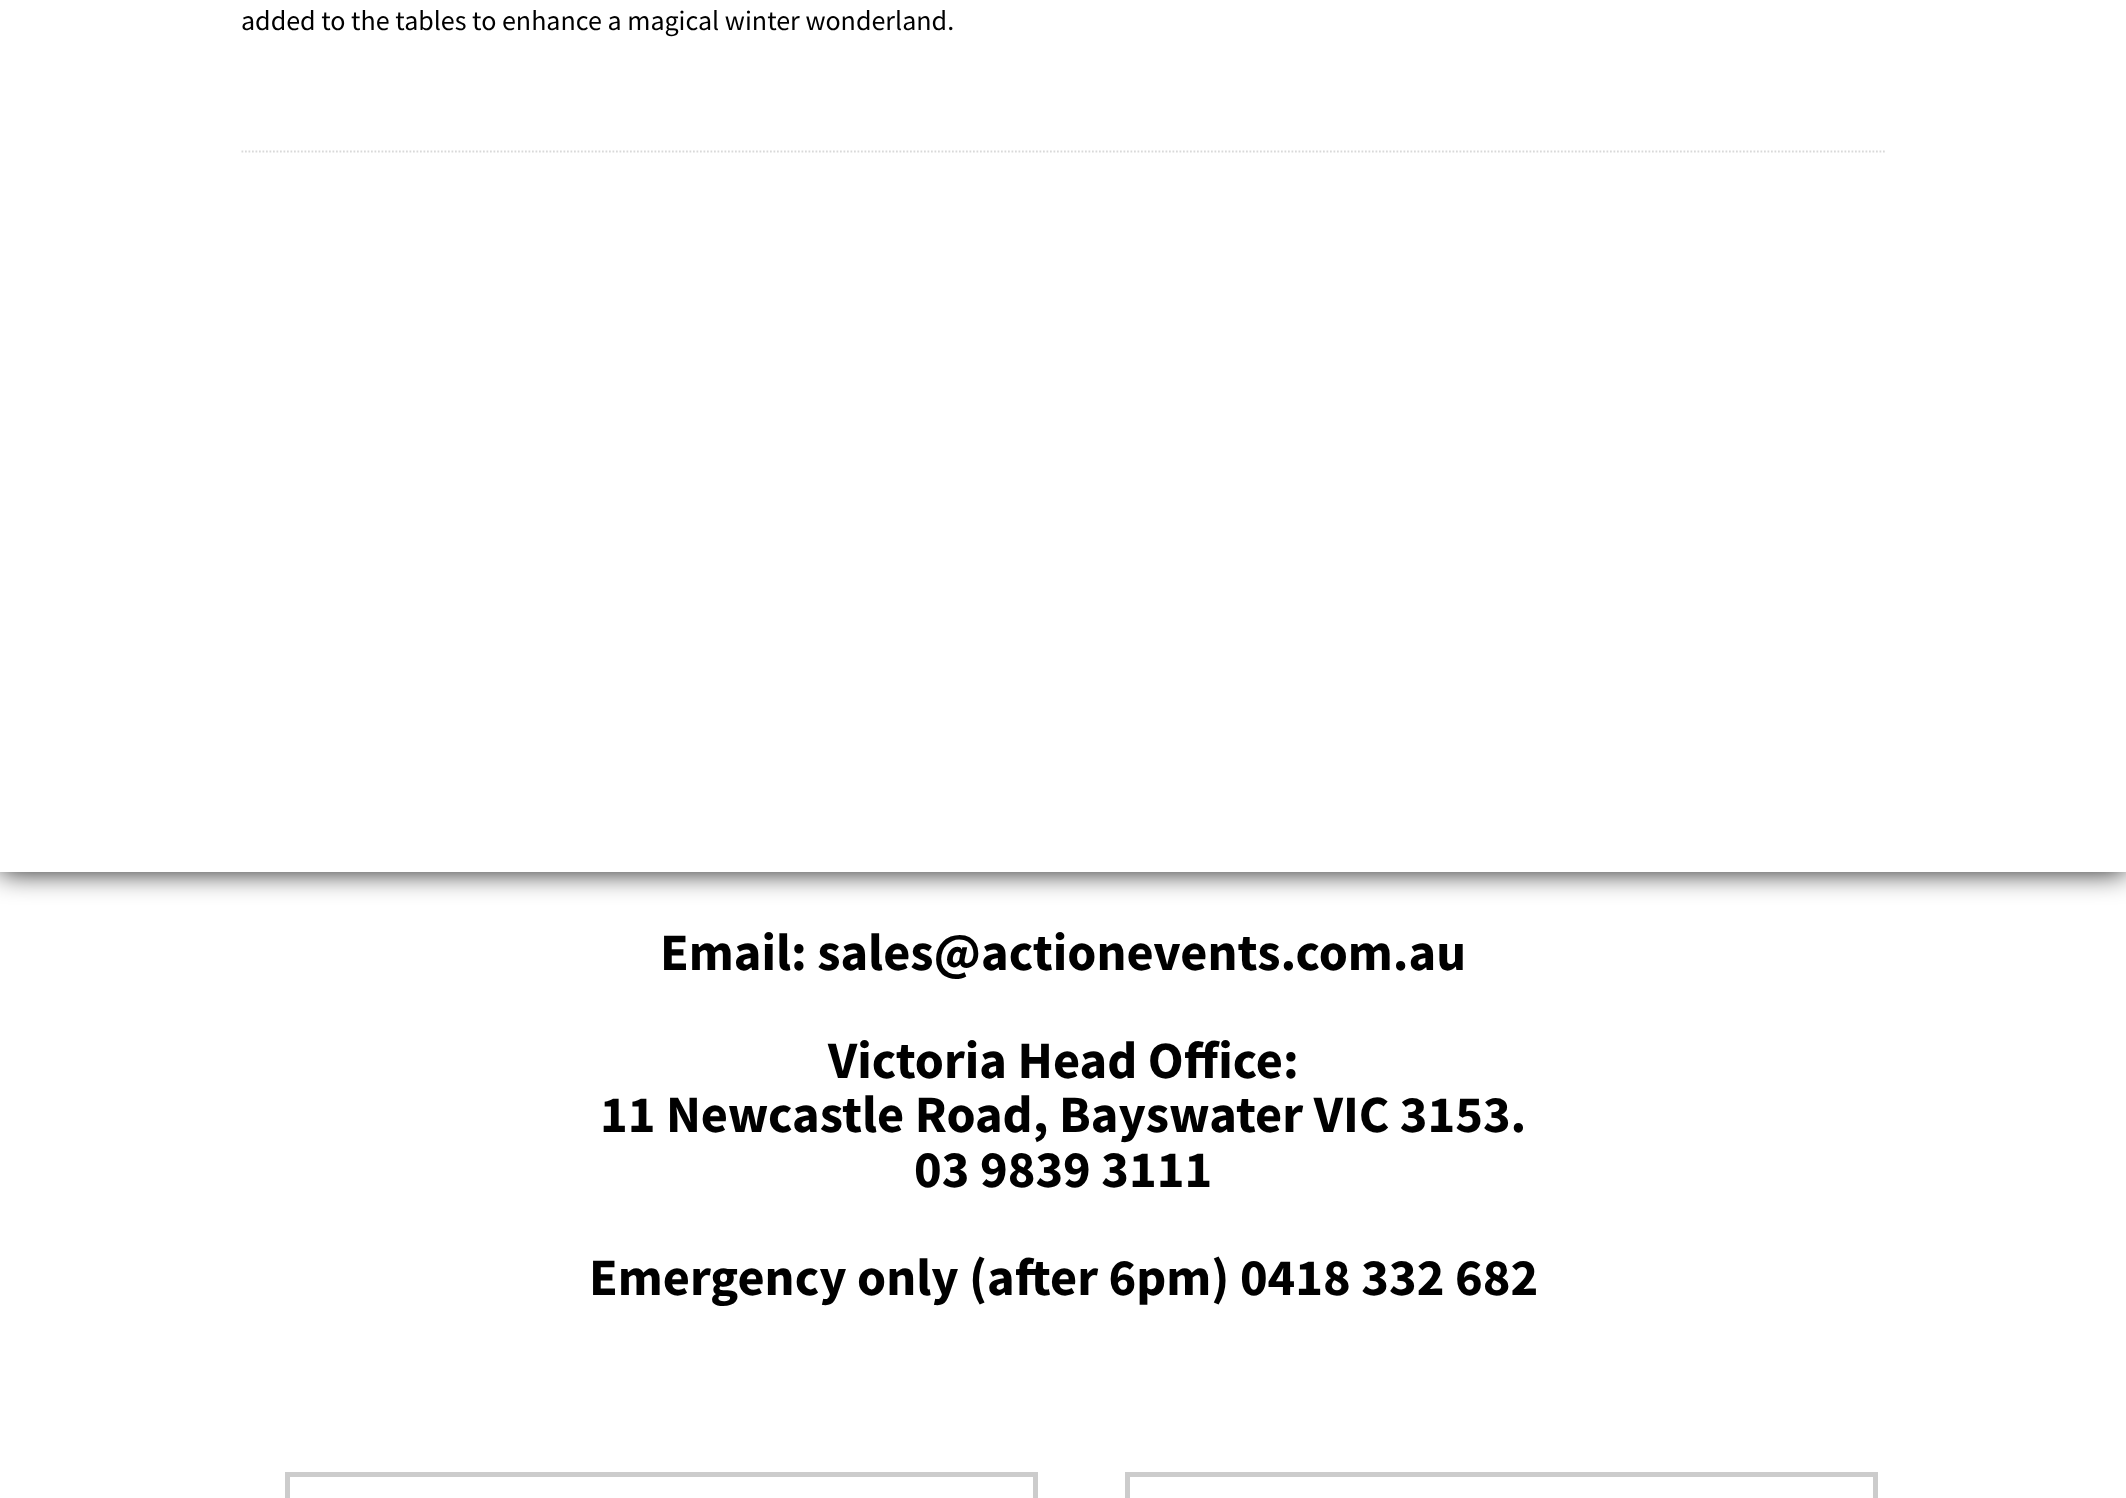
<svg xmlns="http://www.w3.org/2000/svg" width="2126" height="1498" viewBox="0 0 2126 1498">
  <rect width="100%" height="100%" fill="rgb(255,255,255)"/>
  <rect x="0" y="-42" width="2126" height="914" fill="rgba(0,0,0,0.9)" filter="blur(14px)"/>
  <rect x="0" y="0" width="2126" height="872" fill="rgb(255,255,255)"/>
  <path d="M241.5 151.5H1886.5" fill="none" stroke="rgb(217,217,217)" stroke-width="1.8" stroke-dasharray="1.75 1.75"/>
  <text x="241" y="30" font-family="Source Sans Pro" font-size="28" fill="rgb(0,0,0)">added to the tables to enhance a magical winter wonderland.</text>
  <g font-family="Source Sans Pro" font-size="52.5" font-weight="bold" fill="rgb(0,0,0)">
    <text x="660" y="970">Email: sales@actionevents.com.au</text>
    <text x="828" y="1078">Victoria Head Office:</text>
    <text x="600" y="1132">11 Newcastle Road, Bayswater VIC 3153.</text>
    <text x="914" y="1187">03 9839 3111</text>
    <text x="589" y="1295">Emergency only (after 6pm) 0418 332 682</text>
  </g>
  <rect x="287.5" y="1474.5" width="748" height="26" fill="none" stroke="rgb(204,204,204)" stroke-width="5"/>
  <rect x="1127.5" y="1474.5" width="748" height="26" fill="none" stroke="rgb(204,204,204)" stroke-width="5"/>
</svg>
